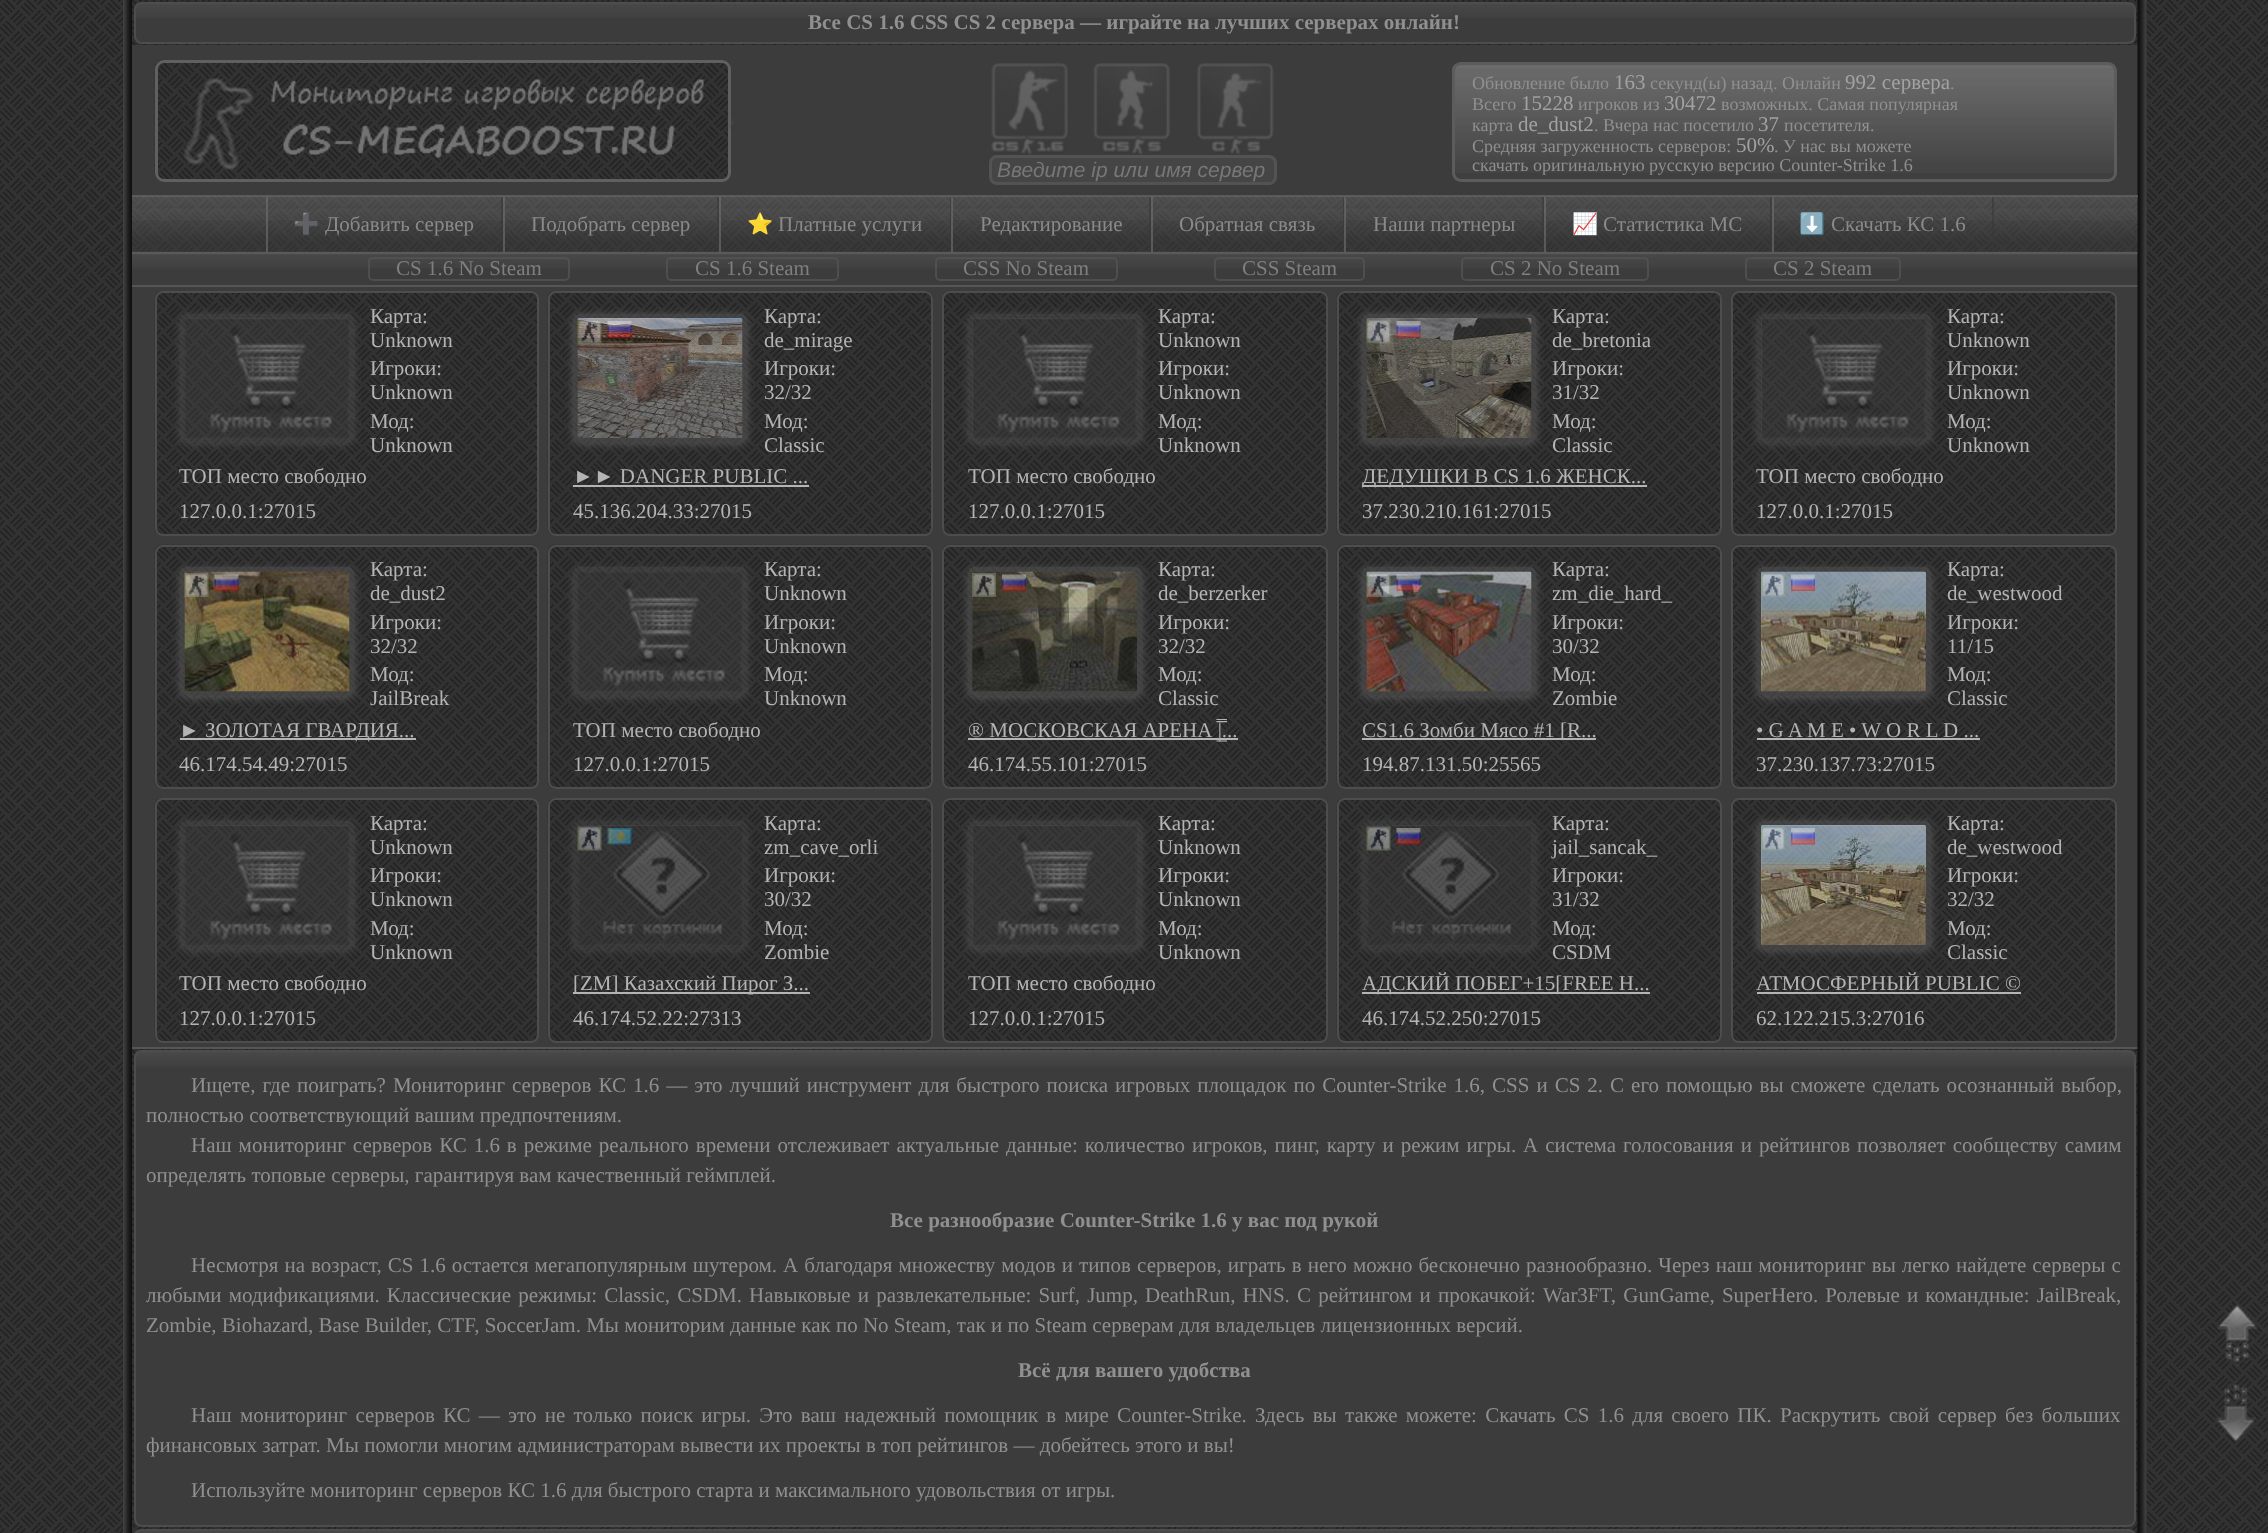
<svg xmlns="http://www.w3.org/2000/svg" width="2268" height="1533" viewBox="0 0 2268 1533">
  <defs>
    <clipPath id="clip1"><path d="M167 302H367V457H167ZM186 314H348C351.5 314 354 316.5 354 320V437C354 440.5 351.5 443 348 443H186C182.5 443 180 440.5 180 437V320C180 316.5 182.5 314 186 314Z" clip-rule="evenodd"/></clipPath>
    <clipPath id="clip2"><path d="M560 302H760V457H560ZM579 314H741C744.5 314 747 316.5 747 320V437C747 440.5 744.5 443 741 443H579C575.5 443 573 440.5 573 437V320C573 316.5 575.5 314 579 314Z" clip-rule="evenodd"/></clipPath>
    <clipPath id="clip3"><path d="M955 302H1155V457H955ZM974 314H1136C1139.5 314 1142 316.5 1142 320V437C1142 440.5 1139.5 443 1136 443H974C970.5 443 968 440.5 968 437V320C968 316.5 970.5 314 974 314Z" clip-rule="evenodd"/></clipPath>
    <clipPath id="clip4"><path d="M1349 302H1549V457H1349ZM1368 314H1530C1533.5 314 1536 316.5 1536 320V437C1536 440.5 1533.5 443 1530 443H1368C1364.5 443 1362 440.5 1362 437V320C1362 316.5 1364.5 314 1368 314Z" clip-rule="evenodd"/></clipPath>
    <clipPath id="clip5"><path d="M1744 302H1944V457H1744ZM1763 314H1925C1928.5 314 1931 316.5 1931 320V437C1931 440.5 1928.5 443 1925 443H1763C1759.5 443 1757 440.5 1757 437V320C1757 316.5 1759.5 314 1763 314Z" clip-rule="evenodd"/></clipPath>
    <clipPath id="clip6"><path d="M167 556H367V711H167ZM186 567H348C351.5 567 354 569.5 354 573V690C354 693.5 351.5 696 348 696H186C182.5 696 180 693.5 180 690V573C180 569.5 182.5 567 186 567Z" clip-rule="evenodd"/></clipPath>
    <clipPath id="clip7"><path d="M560 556H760V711H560ZM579 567H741C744.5 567 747 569.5 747 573V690C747 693.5 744.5 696 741 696H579C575.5 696 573 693.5 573 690V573C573 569.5 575.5 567 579 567Z" clip-rule="evenodd"/></clipPath>
    <clipPath id="clip8"><path d="M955 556H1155V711H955ZM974 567H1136C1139.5 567 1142 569.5 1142 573V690C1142 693.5 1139.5 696 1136 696H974C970.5 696 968 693.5 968 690V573C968 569.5 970.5 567 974 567Z" clip-rule="evenodd"/></clipPath>
    <clipPath id="clip9"><path d="M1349 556H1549V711H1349ZM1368 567H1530C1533.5 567 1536 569.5 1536 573V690C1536 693.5 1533.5 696 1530 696H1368C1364.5 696 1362 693.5 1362 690V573C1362 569.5 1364.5 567 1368 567Z" clip-rule="evenodd"/></clipPath>
    <clipPath id="clip10"><path d="M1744 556H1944V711H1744ZM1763 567H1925C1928.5 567 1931 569.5 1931 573V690C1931 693.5 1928.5 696 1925 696H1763C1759.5 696 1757 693.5 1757 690V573C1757 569.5 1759.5 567 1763 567Z" clip-rule="evenodd"/></clipPath>
    <clipPath id="clip11"><path d="M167 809H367V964H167ZM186 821H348C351.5 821 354 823.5 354 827V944C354 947.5 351.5 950 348 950H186C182.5 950 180 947.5 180 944V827C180 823.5 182.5 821 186 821Z" clip-rule="evenodd"/></clipPath>
    <clipPath id="clip12"><path d="M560 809H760V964H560ZM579 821H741C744.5 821 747 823.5 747 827V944C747 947.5 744.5 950 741 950H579C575.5 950 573 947.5 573 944V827C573 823.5 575.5 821 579 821Z" clip-rule="evenodd"/></clipPath>
    <clipPath id="clip13"><path d="M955 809H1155V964H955ZM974 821H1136C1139.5 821 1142 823.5 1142 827V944C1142 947.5 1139.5 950 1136 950H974C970.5 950 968 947.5 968 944V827C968 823.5 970.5 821 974 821Z" clip-rule="evenodd"/></clipPath>
    <clipPath id="clip14"><path d="M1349 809H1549V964H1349ZM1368 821H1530C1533.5 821 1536 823.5 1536 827V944C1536 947.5 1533.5 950 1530 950H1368C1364.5 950 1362 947.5 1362 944V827C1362 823.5 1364.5 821 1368 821Z" clip-rule="evenodd"/></clipPath>
    <clipPath id="clip15"><path d="M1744 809H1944V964H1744ZM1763 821H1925C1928.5 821 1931 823.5 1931 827V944C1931 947.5 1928.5 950 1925 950H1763C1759.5 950 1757 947.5 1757 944V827C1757 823.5 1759.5 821 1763 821Z" clip-rule="evenodd"/></clipPath>
  </defs>
  <rect width="100%" height="100%" fill="rgb(255,255,255)"/>
  <image x="0" y="0" width="2268" height="1533" href="pic1.png"/>
  <image x="123" y="0" width="9" height="1533" href="pic2.png"/>
  <rect x="134" y="2" width="2002" height="42" rx="8" fill="rgb(60,60,60)"/>
  <image x="134" y="3" width="2002" height="15" href="pic3.png"/>
  <rect x="135" y="3" width="2000" height="40" rx="7" fill="none" stroke="rgb(77,77,77)" stroke-width="2"/>
  <text x="808" y="29" font-family="Liberation Serif" font-size="21" font-weight="bold" fill="rgb(144,144,144)">Все CS 1.6 CSS CS 2 сервера — играйте на лучших серверах онлайн!</text>
  <rect x="132" y="45" width="2006" height="150" fill="rgb(60,60,60)"/>
  <image x="154" y="60" width="577" height="122" href="pic4.png"/>
  <rect x="156.5" y="61.5" width="573" height="119" rx="7.5" fill="none" stroke="rgb(96,96,96)" stroke-width="3"/>
  <image x="183" y="78" width="551" height="92" href="pic5.png"/>
  <image x="991" y="63" width="77" height="92" href="pic6.png"/>
  <image x="1093" y="63" width="77" height="92" href="pic7.png"/>
  <image x="1197" y="63" width="77" height="92" href="pic8.png"/>
  <rect x="990.5" y="156.5" width="285" height="27" rx="6.5" fill="rgb(69,69,69)" stroke="rgb(83,83,83)" stroke-width="3"/>
  <text x="997" y="177" font-family="Liberation Sans" font-size="21" font-style="italic" fill="rgb(119,119,119)">Введите ip или имя сервер</text>
  <rect x="1452" y="62" width="665" height="120" rx="9" fill="rgb(63,63,63)"/>
  <image x="1452" y="64" width="665" height="109" href="pic9.png"/>
  <rect x="1453.5" y="63.5" width="662" height="117" rx="7.5" fill="none" stroke="rgb(92,92,92)" stroke-width="3"/>
  <text x="1472" y="89" font-family="Liberation Serif" font-size="18" fill="rgb(144,144,144)">Обновление было</text>
  <text x="1614" y="89" font-family="Liberation Serif" font-size="21" fill="rgb(162,162,162)">163</text>
  <text x="1650" y="89" font-family="Liberation Serif" font-size="18" fill="rgb(144,144,144)">секунд(ы) назад. Онлайн</text>
  <text x="1845" y="89" font-family="Liberation Serif" font-size="21" fill="rgb(162,162,162)">992 сервера</text>
  <g font-family="Liberation Serif" font-size="18" fill="rgb(144,144,144)">
    <text x="1950" y="89">.</text>
    <text x="1472" y="110">Всего</text>
  </g>
  <text x="1521" y="110" font-family="Liberation Serif" font-size="21" fill="rgb(162,162,162)">15228</text>
  <text x="1578" y="110" font-family="Liberation Serif" font-size="18" fill="rgb(144,144,144)">игроков из</text>
  <text x="1664" y="110" font-family="Liberation Serif" font-size="21" fill="rgb(162,162,162)">30472</text>
  <g font-family="Liberation Serif" font-size="18" fill="rgb(144,144,144)">
    <text x="1721" y="110">возможных. Самая популярная</text>
    <text x="1472" y="131">карта</text>
  </g>
  <text x="1518" y="131" font-family="Liberation Serif" font-size="21" fill="rgb(162,162,162)">de_dust2</text>
  <text x="1594" y="131" font-family="Liberation Serif" font-size="18" fill="rgb(144,144,144)">. Вчера нас посетило</text>
  <text x="1758" y="131" font-family="Liberation Serif" font-size="21" fill="rgb(162,162,162)">37</text>
  <g font-family="Liberation Serif" font-size="18" fill="rgb(144,144,144)">
    <text x="1784" y="131">посетителя.</text>
    <text x="1472" y="152">Средняя загруженность серверов:</text>
  </g>
  <text x="1736" y="152" font-family="Liberation Serif" font-size="21" fill="rgb(162,162,162)">50%</text>
  <g font-family="Liberation Serif" font-size="18" fill="rgb(144,144,144)">
    <text x="1774" y="152">. У нас вы можете</text>
    <text x="1472" y="171">скачать оригинальную русскую версию Counter-Strike 1.6</text>
  </g>
  <rect x="132" y="254" width="2006" height="31" fill="rgb(60,60,60)"/>
  <image x="132" y="254" width="2006" height="15" href="pic11.png"/>
  <rect x="132" y="252" width="2006" height="2" fill="rgb(90,90,90)"/>
  <rect x="132" y="285" width="2006" height="2" fill="rgb(85,85,85)"/>
  <rect x="132" y="1047" width="2006" height="2" fill="rgb(86,86,86)"/>
  <rect x="132" y="287" width="2006" height="760" fill="rgb(60,60,60)"/>
  <image x="2137" y="0" width="10" height="1533" href="pic56.png"/>
  <image x="132" y="195" width="2006" height="57" href="pic10.png"/>
  <rect x="132" y="195" width="2006" height="2" fill="rgba(113,113,113,0.6)"/>
  <rect x="501" y="197" width="2" height="55" fill="rgba(56,56,56,0.6)"/>
  <rect x="266" y="197" width="2" height="55" fill="rgba(113,113,113,0.6)"/>
  <text x="293" y="231" font-family="Noto Color Emoji" font-size="21" fill="rgb(144,144,144)">➕</text>
  <text x="325" y="231" font-family="Liberation Serif" font-size="21" fill="rgb(138,138,138)">Добавить сервер</text>
  <rect x="717" y="197" width="2" height="55" fill="rgba(56,56,56,0.6)"/>
  <rect x="503" y="197" width="2" height="55" fill="rgba(113,113,113,0.6)"/>
  <text x="531" y="231" font-family="Liberation Serif" font-size="21" fill="rgb(138,138,138)">Подобрать сервер</text>
  <rect x="950" y="197" width="2" height="55" fill="rgba(56,56,56,0.6)"/>
  <rect x="719" y="197" width="2" height="55" fill="rgba(113,113,113,0.6)"/>
  <text x="747" y="231" font-family="Noto Color Emoji" font-size="21" fill="rgb(144,144,144)">⭐</text>
  <text x="778" y="231" font-family="Liberation Serif" font-size="21" fill="rgb(138,138,138)">Платные услуги</text>
  <rect x="1149" y="197" width="2" height="55" fill="rgba(56,56,56,0.6)"/>
  <rect x="951" y="197" width="2" height="55" fill="rgba(113,113,113,0.6)"/>
  <text x="980" y="231" font-family="Liberation Serif" font-size="21" fill="rgb(138,138,138)">Редактирование</text>
  <rect x="1343" y="197" width="2" height="55" fill="rgba(56,56,56,0.6)"/>
  <rect x="1151" y="197" width="2" height="55" fill="rgba(113,113,113,0.6)"/>
  <text x="1179" y="231" font-family="Liberation Serif" font-size="21" fill="rgb(138,138,138)">Обратная связь</text>
  <rect x="1542" y="197" width="2" height="46" fill="rgba(56,56,56,0.6)"/>
  <rect x="1344" y="197" width="2" height="55" fill="rgba(113,113,113,0.6)"/>
  <text x="1373" y="231" font-family="Liberation Serif" font-size="21" fill="rgb(138,138,138)">Наши партнеры</text>
  <rect x="1770" y="197" width="2" height="55" fill="rgba(56,56,56,0.6)"/>
  <rect x="1544" y="197" width="2" height="55" fill="rgba(113,113,113,0.6)"/>
  <text x="1572" y="231" font-family="Noto Color Emoji" font-size="21" fill="rgb(144,144,144)">📈</text>
  <text x="1603" y="231" font-family="Liberation Serif" font-size="21" fill="rgb(138,138,138)">Статистика МС</text>
  <rect x="1992" y="197" width="2" height="55" fill="rgba(56,56,56,0.6)"/>
  <rect x="1772" y="197" width="2" height="55" fill="rgba(113,113,113,0.6)"/>
  <text x="1799" y="231" font-family="Noto Color Emoji" font-size="21" fill="rgb(144,144,144)">⬇️</text>
  <text x="1831" y="231" font-family="Liberation Serif" font-size="21" fill="rgb(138,138,138)">Скачать КС 1.6</text>
  <rect x="368" y="257" width="202" height="24" rx="5" fill="rgba(60,60,60,0.6)"/>
  <image x="368" y="258" width="202" height="10" href="pic12.png"/>
  <rect x="369" y="258" width="200" height="22" rx="4" fill="none" stroke="rgba(90,90,90,0.6)" stroke-width="2"/>
  <text x="396" y="275" font-family="Liberation Serif" font-size="21" fill="rgb(127,127,127)">CS 1.6 No Steam</text>
  <rect x="666" y="257" width="173" height="24" rx="5" fill="rgba(60,60,60,0.6)"/>
  <image x="666" y="258" width="172" height="10" href="pic13.png"/>
  <rect x="667" y="258" width="171" height="22" rx="4" fill="none" stroke="rgba(90,90,90,0.6)" stroke-width="2"/>
  <text x="695" y="275" font-family="Liberation Serif" font-size="21" fill="rgb(127,127,127)">CS 1.6 Steam</text>
  <rect x="935" y="257" width="183" height="24" rx="5" fill="rgba(60,60,60,0.6)"/>
  <image x="935" y="258" width="182" height="10" href="pic14.png"/>
  <rect x="936" y="258" width="181" height="22" rx="4" fill="none" stroke="rgba(90,90,90,0.6)" stroke-width="2"/>
  <text x="963" y="275" font-family="Liberation Serif" font-size="21" fill="rgb(127,127,127)">CSS No Steam</text>
  <rect x="1214" y="257" width="151" height="24" rx="5" fill="rgba(60,60,60,0.6)"/>
  <image x="1214" y="258" width="151" height="10" href="pic15.png"/>
  <rect x="1215" y="258" width="149" height="22" rx="4" fill="none" stroke="rgba(90,90,90,0.6)" stroke-width="2"/>
  <text x="1242" y="275" font-family="Liberation Serif" font-size="21" fill="rgb(127,127,127)">CSS Steam</text>
  <rect x="1461" y="257" width="188" height="24" rx="5" fill="rgba(60,60,60,0.6)"/>
  <image x="1461" y="258" width="187" height="10" href="pic16.png"/>
  <rect x="1462" y="258" width="186" height="22" rx="4" fill="none" stroke="rgba(90,90,90,0.6)" stroke-width="2"/>
  <text x="1490" y="275" font-family="Liberation Serif" font-size="21" fill="rgb(127,127,127)">CS 2 No Steam</text>
  <rect x="1745" y="257" width="156" height="24" rx="5" fill="rgba(60,60,60,0.6)"/>
  <image x="1745" y="258" width="155" height="10" href="pic17.png"/>
  <rect x="1746" y="258" width="154" height="22" rx="4" fill="none" stroke="rgba(90,90,90,0.6)" stroke-width="2"/>
  <text x="1773" y="275" font-family="Liberation Serif" font-size="21" fill="rgb(127,127,127)">CS 2 Steam</text>
  <image x="154" y="291" width="385" height="245" href="pic18.png"/>
  <rect x="156" y="292" width="382" height="243" rx="7" fill="none" stroke="rgb(77,77,77)" stroke-width="2"/>
  <g clip-path="url(#clip1)">
    <rect x="180" y="315" width="174" height="129" rx="6" fill="rgba(108,108,108,0.4)" filter="blur(4px)"/>
  </g>
  <rect x="182.5" y="316.5" width="169" height="124" rx="3.5" fill="none" stroke="rgba(82,82,82,0.4)" stroke-width="5"/>
  <image x="185" y="318" width="164" height="120" href="pic19.png"/>
  <g font-family="Liberation Serif" font-size="21" fill="rgb(180,180,180)">
    <text>
      <tspan x="370" y="323">Карта:</tspan>
      <tspan x="370" y="347">Unknown</tspan>
      <tspan x="370" y="375">Игроки:</tspan>
      <tspan x="370" y="399">Unknown</tspan>
      <tspan x="370" y="428">Мод:</tspan>
      <tspan x="370" y="452">Unknown</tspan>
    </text>
    <text>
      <tspan x="179" y="483">ТОП место свободно</tspan>
      <tspan x="179" y="518">127.0.0.1:27015</tspan>
    </text>
  </g>
  <image x="547" y="291" width="386" height="245" href="pic20.png"/>
  <rect x="549" y="292" width="383" height="243" rx="7" fill="none" stroke="rgb(77,77,77)" stroke-width="2"/>
  <g clip-path="url(#clip2)">
    <rect x="573" y="315" width="174" height="129" rx="6" fill="rgba(108,108,108,0.6)" filter="blur(4px)"/>
  </g>
  <rect x="575.5" y="316.5" width="169" height="124" rx="3.5" fill="none" stroke="rgba(82,82,82,0.6)" stroke-width="5"/>
  <image x="577" y="318" width="166" height="120" href="pic21.png"/>
  <image x="577" y="319" width="25" height="25" href="pic22.png"/>
  <image x="607" y="321" width="25" height="17" href="pic23.png"/>
  <g font-family="Liberation Serif" font-size="21" fill="rgb(180,180,180)">
    <text>
      <tspan x="764" y="323">Карта:</tspan>
      <tspan x="764" y="347">de_mirage</tspan>
      <tspan x="764" y="375">Игроки:</tspan>
      <tspan x="764" y="399">32/32</tspan>
      <tspan x="764" y="428">Мод:</tspan>
      <tspan x="764" y="452">Classic</tspan>
    </text>
    <text x="573" y="483">►► DANGER PUBLIC ...</text>
  </g>
  <rect x="573" y="485" width="236" height="2" fill="rgb(180,180,180)"/>
  <text x="573" y="518" font-family="Liberation Serif" font-size="21" fill="rgb(180,180,180)">45.136.204.33:27015</text>
  <image x="942" y="291" width="386" height="245" href="pic24.png"/>
  <rect x="943" y="292" width="384" height="243" rx="7" fill="none" stroke="rgb(77,77,77)" stroke-width="2"/>
  <g clip-path="url(#clip3)">
    <rect x="968" y="315" width="174" height="129" rx="6" fill="rgba(108,108,108,0.4)" filter="blur(4px)"/>
  </g>
  <rect x="970.5" y="316.5" width="169" height="124" rx="3.5" fill="none" stroke="rgba(82,82,82,0.4)" stroke-width="5"/>
  <image x="972" y="318" width="165" height="120" href="pic25.png"/>
  <g font-family="Liberation Serif" font-size="21" fill="rgb(180,180,180)">
    <text>
      <tspan x="1158" y="323">Карта:</tspan>
      <tspan x="1158" y="347">Unknown</tspan>
      <tspan x="1158" y="375">Игроки:</tspan>
      <tspan x="1158" y="399">Unknown</tspan>
      <tspan x="1158" y="428">Мод:</tspan>
      <tspan x="1158" y="452">Unknown</tspan>
    </text>
    <text>
      <tspan x="968" y="483">ТОП место свободно</tspan>
      <tspan x="968" y="518">127.0.0.1:27015</tspan>
    </text>
  </g>
  <image x="1336" y="291" width="386" height="245" href="pic20.png"/>
  <rect x="1338" y="292" width="383" height="243" rx="7" fill="none" stroke="rgb(77,77,77)" stroke-width="2"/>
  <g clip-path="url(#clip4)">
    <rect x="1362" y="315" width="174" height="129" rx="6" fill="rgba(108,108,108,0.6)" filter="blur(4px)"/>
  </g>
  <rect x="1364.5" y="316.5" width="169" height="124" rx="3.5" fill="none" stroke="rgba(82,82,82,0.6)" stroke-width="5"/>
  <image x="1366" y="318" width="166" height="120" href="pic26.png"/>
  <image x="1366" y="319" width="25" height="25" href="pic27.png"/>
  <image x="1396" y="321" width="25" height="17" href="pic28.png"/>
  <g font-family="Liberation Serif" font-size="21" fill="rgb(180,180,180)">
    <text>
      <tspan x="1552" y="323">Карта:</tspan>
      <tspan x="1552" y="347">de_bretonia</tspan>
      <tspan x="1552" y="375">Игроки:</tspan>
      <tspan x="1552" y="399">31/32</tspan>
      <tspan x="1552" y="428">Мод:</tspan>
      <tspan x="1552" y="452">Classic</tspan>
    </text>
  </g>
  <rect x="1362" y="485" width="285" height="2" fill="rgb(180,180,180)"/>
  <g font-family="Liberation Serif" font-size="21" fill="rgb(180,180,180)">
    <text>
      <tspan x="1362" y="483">ДЕДУШКИ В CS 1.6 ЖЕНСК...</tspan>
      <tspan x="1362" y="518">37.230.210.161:27015</tspan>
    </text>
  </g>
  <image x="1731" y="291" width="386" height="245" href="pic24.png"/>
  <rect x="1732" y="292" width="384" height="243" rx="7" fill="none" stroke="rgb(77,77,77)" stroke-width="2"/>
  <g clip-path="url(#clip5)">
    <rect x="1757" y="315" width="174" height="129" rx="6" fill="rgba(108,108,108,0.4)" filter="blur(4px)"/>
  </g>
  <rect x="1759.5" y="316.5" width="169" height="124" rx="3.5" fill="none" stroke="rgba(82,82,82,0.4)" stroke-width="5"/>
  <image x="1761" y="318" width="165" height="120" href="pic25.png"/>
  <g font-family="Liberation Serif" font-size="21" fill="rgb(180,180,180)">
    <text>
      <tspan x="1947" y="323">Карта:</tspan>
      <tspan x="1947" y="347">Unknown</tspan>
      <tspan x="1947" y="375">Игроки:</tspan>
      <tspan x="1947" y="399">Unknown</tspan>
      <tspan x="1947" y="428">Мод:</tspan>
      <tspan x="1947" y="452">Unknown</tspan>
    </text>
    <text>
      <tspan x="1756" y="483">ТОП место свободно</tspan>
      <tspan x="1756" y="518">127.0.0.1:27015</tspan>
    </text>
  </g>
  <image x="154" y="544" width="385" height="245" href="pic29.png"/>
  <rect x="156" y="546" width="382" height="242" rx="7" fill="none" stroke="rgb(77,77,77)" stroke-width="2"/>
  <g clip-path="url(#clip6)">
    <rect x="180" y="569" width="174" height="129" rx="6" fill="rgba(108,108,108,0.6)" filter="blur(4px)"/>
  </g>
  <rect x="182.5" y="569.5" width="169" height="124" rx="3.5" fill="none" stroke="rgba(82,82,82,0.6)" stroke-width="5"/>
  <image x="184" y="571" width="166" height="121" href="pic30.png"/>
  <image x="184" y="573" width="25" height="24" href="pic31.png"/>
  <image x="214" y="574" width="25" height="17" href="pic32.png"/>
  <g font-family="Liberation Serif" font-size="21" fill="rgb(180,180,180)">
    <text>
      <tspan x="370" y="576">Карта:</tspan>
      <tspan x="370" y="600">de_dust2</tspan>
      <tspan x="370" y="629">Игроки:</tspan>
      <tspan x="370" y="653">32/32</tspan>
      <tspan x="370" y="681">Мод:</tspan>
      <tspan x="370" y="705">JailBreak</tspan>
    </text>
  </g>
  <rect x="180" y="738" width="236" height="2" fill="rgb(180,180,180)"/>
  <g font-family="Liberation Serif" font-size="21" fill="rgb(180,180,180)">
    <text>
      <tspan x="179" y="737">► ЗОЛОТАЯ ГВАРДИЯ...</tspan>
      <tspan x="179" y="771">46.174.54.49:27015</tspan>
    </text>
  </g>
  <image x="547" y="544" width="386" height="245" href="pic33.png"/>
  <rect x="549" y="546" width="383" height="242" rx="7" fill="none" stroke="rgb(77,77,77)" stroke-width="2"/>
  <g clip-path="url(#clip7)">
    <rect x="573" y="569" width="174" height="129" rx="6" fill="rgba(108,108,108,0.4)" filter="blur(4px)"/>
  </g>
  <rect x="575.5" y="569.5" width="169" height="124" rx="3.5" fill="none" stroke="rgba(82,82,82,0.4)" stroke-width="5"/>
  <image x="578" y="572" width="164" height="119" href="pic34.png"/>
  <g font-family="Liberation Serif" font-size="21" fill="rgb(180,180,180)">
    <text>
      <tspan x="764" y="576">Карта:</tspan>
      <tspan x="764" y="600">Unknown</tspan>
      <tspan x="764" y="629">Игроки:</tspan>
      <tspan x="764" y="653">Unknown</tspan>
      <tspan x="764" y="681">Мод:</tspan>
      <tspan x="764" y="705">Unknown</tspan>
    </text>
    <text>
      <tspan x="573" y="737">ТОП место свободно</tspan>
      <tspan x="573" y="771">127.0.0.1:27015</tspan>
    </text>
  </g>
  <image x="942" y="544" width="386" height="245" href="pic35.png"/>
  <rect x="943" y="546" width="384" height="242" rx="7" fill="none" stroke="rgb(77,77,77)" stroke-width="2"/>
  <g clip-path="url(#clip8)">
    <rect x="968" y="569" width="174" height="129" rx="6" fill="rgba(108,108,108,0.6)" filter="blur(4px)"/>
  </g>
  <rect x="970.5" y="569.5" width="169" height="124" rx="3.5" fill="none" stroke="rgba(82,82,82,0.6)" stroke-width="5"/>
  <image x="972" y="571" width="165" height="121" href="pic36.png"/>
  <image x="972" y="573" width="24" height="24" href="pic37.png"/>
  <image x="1002" y="574" width="24" height="17" href="pic38.png"/>
  <g font-family="Liberation Serif" font-size="21" fill="rgb(180,180,180)">
    <text>
      <tspan x="1158" y="576">Карта:</tspan>
      <tspan x="1158" y="600">de_berzerker</tspan>
      <tspan x="1158" y="629">Игроки:</tspan>
      <tspan x="1158" y="653">32/32</tspan>
      <tspan x="1158" y="681">Мод:</tspan>
      <tspan x="1158" y="705">Classic</tspan>
    </text>
  </g>
  <rect x="968" y="738" width="270" height="2" fill="rgb(180,180,180)"/>
  <g font-family="Liberation Serif" font-size="21" fill="rgb(180,180,180)">
    <text>
      <tspan x="968" y="737">® МОСКОВСКАЯ АРЕНА |͇̿...</tspan>
      <tspan x="968" y="771">46.174.55.101:27015</tspan>
    </text>
  </g>
  <image x="1336" y="544" width="386" height="245" href="pic33.png"/>
  <rect x="1338" y="546" width="383" height="242" rx="7" fill="none" stroke="rgb(77,77,77)" stroke-width="2"/>
  <g clip-path="url(#clip9)">
    <rect x="1362" y="569" width="174" height="129" rx="6" fill="rgba(108,108,108,0.6)" filter="blur(4px)"/>
  </g>
  <rect x="1364.5" y="569.5" width="169" height="124" rx="3.5" fill="none" stroke="rgba(82,82,82,0.6)" stroke-width="5"/>
  <image x="1366" y="571" width="166" height="121" href="pic39.png"/>
  <image x="1366" y="573" width="25" height="24" href="pic40.png"/>
  <image x="1396" y="574" width="25" height="17" href="pic41.png"/>
  <g font-family="Liberation Serif" font-size="21" fill="rgb(180,180,180)">
    <text>
      <tspan x="1552" y="576">Карта:</tspan>
      <tspan x="1552" y="600">zm_die_hard_</tspan>
      <tspan x="1552" y="629">Игроки:</tspan>
      <tspan x="1552" y="653">30/32</tspan>
      <tspan x="1552" y="681">Мод:</tspan>
      <tspan x="1552" y="705">Zombie</tspan>
    </text>
  </g>
  <rect x="1362" y="738" width="234" height="2" fill="rgb(180,180,180)"/>
  <g font-family="Liberation Serif" font-size="21" fill="rgb(180,180,180)">
    <text>
      <tspan x="1362" y="737">CS1.6 Зомби Мясо #1 [R...</tspan>
      <tspan x="1362" y="771">194.87.131.50:25565</tspan>
    </text>
  </g>
  <image x="1731" y="544" width="386" height="245" href="pic35.png"/>
  <rect x="1732" y="546" width="384" height="242" rx="7" fill="none" stroke="rgb(77,77,77)" stroke-width="2"/>
  <g clip-path="url(#clip10)">
    <rect x="1757" y="569" width="174" height="129" rx="6" fill="rgba(108,108,108,0.6)" filter="blur(4px)"/>
  </g>
  <rect x="1759.5" y="569.5" width="169" height="124" rx="3.5" fill="none" stroke="rgba(82,82,82,0.6)" stroke-width="5"/>
  <image x="1761" y="571" width="165" height="121" href="pic42.png"/>
  <image x="1761" y="573" width="24" height="24" href="pic43.png"/>
  <image x="1791" y="574" width="24" height="17" href="pic44.png"/>
  <g font-family="Liberation Serif" font-size="21" fill="rgb(180,180,180)">
    <text>
      <tspan x="1947" y="576">Карта:</tspan>
      <tspan x="1947" y="600">de_westwood</tspan>
      <tspan x="1947" y="629">Игроки:</tspan>
      <tspan x="1947" y="653">11/15</tspan>
      <tspan x="1947" y="681">Мод:</tspan>
      <tspan x="1947" y="705">Classic</tspan>
    </text>
    <text x="1756" y="737">• G A M E • W O R L D ...</text>
  </g>
  <rect x="1757" y="738" width="223" height="2" fill="rgb(180,180,180)"/>
  <text x="1756" y="771" font-family="Liberation Serif" font-size="21" fill="rgb(180,180,180)">37.230.137.73:27015</text>
  <image x="154" y="798" width="385" height="245" href="pic18.png"/>
  <rect x="156" y="799" width="382" height="243" rx="7" fill="none" stroke="rgb(77,77,77)" stroke-width="2"/>
  <g clip-path="url(#clip11)">
    <rect x="180" y="822" width="174" height="129" rx="6" fill="rgba(108,108,108,0.4)" filter="blur(4px)"/>
  </g>
  <rect x="182.5" y="823.5" width="169" height="124" rx="3.5" fill="none" stroke="rgba(82,82,82,0.4)" stroke-width="5"/>
  <image x="185" y="825" width="164" height="120" href="pic19.png"/>
  <g font-family="Liberation Serif" font-size="21" fill="rgb(180,180,180)">
    <text>
      <tspan x="370" y="830">Карта:</tspan>
      <tspan x="370" y="854">Unknown</tspan>
      <tspan x="370" y="882">Игроки:</tspan>
      <tspan x="370" y="906">Unknown</tspan>
      <tspan x="370" y="935">Мод:</tspan>
      <tspan x="370" y="959">Unknown</tspan>
    </text>
    <text>
      <tspan x="179" y="990">ТОП место свободно</tspan>
      <tspan x="179" y="1025">127.0.0.1:27015</tspan>
    </text>
  </g>
  <image x="547" y="798" width="386" height="245" href="pic20.png"/>
  <rect x="549" y="799" width="383" height="243" rx="7" fill="none" stroke="rgb(77,77,77)" stroke-width="2"/>
  <g clip-path="url(#clip12)">
    <rect x="573" y="822" width="174" height="129" rx="6" fill="rgba(108,108,108,0.3)" filter="blur(4px)"/>
  </g>
  <rect x="575.5" y="823.5" width="169" height="124" rx="3.5" fill="none" stroke="rgba(82,82,82,0.3)" stroke-width="5"/>
  <image x="578" y="825" width="164" height="120" href="pic45.png"/>
  <image x="577" y="826" width="25" height="25" href="pic46.png"/>
  <image x="607" y="828" width="25" height="17" href="pic47.png"/>
  <g font-family="Liberation Serif" font-size="21" fill="rgb(180,180,180)">
    <text>
      <tspan x="764" y="830">Карта:</tspan>
      <tspan x="764" y="854">zm_cave_orli</tspan>
      <tspan x="764" y="882">Игроки:</tspan>
      <tspan x="764" y="906">30/32</tspan>
      <tspan x="764" y="935">Мод:</tspan>
      <tspan x="764" y="959">Zombie</tspan>
    </text>
  </g>
  <rect x="573" y="992" width="237" height="2" fill="rgb(180,180,180)"/>
  <g font-family="Liberation Serif" font-size="21" fill="rgb(180,180,180)">
    <text>
      <tspan x="573" y="990">[ZM] Казахский Пирог З...</tspan>
      <tspan x="573" y="1025">46.174.52.22:27313</tspan>
    </text>
  </g>
  <image x="942" y="798" width="386" height="245" href="pic24.png"/>
  <rect x="943" y="799" width="384" height="243" rx="7" fill="none" stroke="rgb(77,77,77)" stroke-width="2"/>
  <g clip-path="url(#clip13)">
    <rect x="968" y="822" width="174" height="129" rx="6" fill="rgba(108,108,108,0.4)" filter="blur(4px)"/>
  </g>
  <rect x="970.5" y="823.5" width="169" height="124" rx="3.5" fill="none" stroke="rgba(82,82,82,0.4)" stroke-width="5"/>
  <image x="972" y="825" width="165" height="120" href="pic25.png"/>
  <g font-family="Liberation Serif" font-size="21" fill="rgb(180,180,180)">
    <text>
      <tspan x="1158" y="830">Карта:</tspan>
      <tspan x="1158" y="854">Unknown</tspan>
      <tspan x="1158" y="882">Игроки:</tspan>
      <tspan x="1158" y="906">Unknown</tspan>
      <tspan x="1158" y="935">Мод:</tspan>
      <tspan x="1158" y="959">Unknown</tspan>
    </text>
    <text>
      <tspan x="968" y="990">ТОП место свободно</tspan>
      <tspan x="968" y="1025">127.0.0.1:27015</tspan>
    </text>
  </g>
  <image x="1336" y="798" width="386" height="245" href="pic20.png"/>
  <rect x="1338" y="799" width="383" height="243" rx="7" fill="none" stroke="rgb(77,77,77)" stroke-width="2"/>
  <g clip-path="url(#clip14)">
    <rect x="1362" y="822" width="174" height="129" rx="6" fill="rgba(108,108,108,0.3)" filter="blur(4px)"/>
  </g>
  <rect x="1364.5" y="823.5" width="169" height="124" rx="3.5" fill="none" stroke="rgba(82,82,82,0.3)" stroke-width="5"/>
  <image x="1367" y="825" width="164" height="120" href="pic45.png"/>
  <image x="1366" y="826" width="25" height="25" href="pic46.png"/>
  <image x="1396" y="828" width="25" height="17" href="pic48.png"/>
  <g font-family="Liberation Serif" font-size="21" fill="rgb(180,180,180)">
    <text>
      <tspan x="1552" y="830">Карта:</tspan>
      <tspan x="1552" y="854">jail_sancak_</tspan>
      <tspan x="1552" y="882">Игроки:</tspan>
      <tspan x="1552" y="906">31/32</tspan>
      <tspan x="1552" y="935">Мод:</tspan>
      <tspan x="1552" y="959">CSDM</tspan>
    </text>
  </g>
  <rect x="1362" y="992" width="288" height="2" fill="rgb(180,180,180)"/>
  <g font-family="Liberation Serif" font-size="21" fill="rgb(180,180,180)">
    <text>
      <tspan x="1362" y="990">АДСКИЙ ПОБЕГ+15[FREE H...</tspan>
      <tspan x="1362" y="1025">46.174.52.250:27015</tspan>
    </text>
  </g>
  <image x="1731" y="798" width="386" height="245" href="pic24.png"/>
  <rect x="1732" y="799" width="384" height="243" rx="7" fill="none" stroke="rgb(77,77,77)" stroke-width="2"/>
  <g clip-path="url(#clip15)">
    <rect x="1757" y="822" width="174" height="129" rx="6" fill="rgba(108,108,108,0.6)" filter="blur(4px)"/>
  </g>
  <rect x="1759.5" y="823.5" width="169" height="124" rx="3.5" fill="none" stroke="rgba(82,82,82,0.6)" stroke-width="5"/>
  <image x="1761" y="825" width="165" height="120" href="pic49.png"/>
  <image x="1761" y="826" width="24" height="25" href="pic50.png"/>
  <image x="1791" y="828" width="24" height="17" href="pic51.png"/>
  <g font-family="Liberation Serif" font-size="21" fill="rgb(180,180,180)">
    <text>
      <tspan x="1947" y="830">Карта:</tspan>
      <tspan x="1947" y="854">de_westwood</tspan>
      <tspan x="1947" y="882">Игроки:</tspan>
      <tspan x="1947" y="906">32/32</tspan>
      <tspan x="1947" y="935">Мод:</tspan>
      <tspan x="1947" y="959">Classic</tspan>
    </text>
    <text x="1756" y="990">АТМОСФЕРНЫЙ PUBLIC ©</text>
  </g>
  <rect x="1757" y="992" width="264" height="2" fill="rgb(180,180,180)"/>
  <text x="1756" y="1025" font-family="Liberation Serif" font-size="21" fill="rgb(180,180,180)">62.122.215.3:27016</text>
  <rect x="134" y="1050" width="2002" height="477" rx="8" fill="rgb(60,60,60)"/>
  <image x="134" y="1051" width="2002" height="16" href="pic52.png"/>
  <rect x="135" y="1051" width="2000" height="475" rx="7" fill="none" stroke="rgb(77,77,77)" stroke-width="2"/>
  <g font-family="Liberation Serif" font-size="21" fill="rgb(144,144,144)">
    <text x="191" y="1092" word-spacing="1.75">Ищете, где поиграть? Мониторинг серверов КС 1.6 — это лучший инструмент для быстрого поиска игровых площадок по Counter-Strike 1.6, CSS и CS 2. С его помощью вы сможете сделать осознанный выбор,</text>
    <text x="146" y="1122">полностью соответствующий вашим предпочтениям.</text>
    <text x="191" y="1152" word-spacing="1.7">Наш мониторинг серверов КС 1.6 в режиме реального времени отслеживает актуальные данные: количество игроков, пинг, карту и режим игры. А система голосования и рейтингов позволяет сообществу самим</text>
    <text x="146" y="1182">определять топовые серверы, гарантируя вам качественный геймплей.</text>
  </g>
  <text x="890" y="1227" font-family="Liberation Serif" font-size="21" font-weight="bold" fill="rgb(144,144,144)">Все разнообразие Counter-Strike 1.6 у вас под рукой</text>
  <g font-family="Liberation Serif" font-size="21" fill="rgb(144,144,144)">
    <text x="191" y="1272" word-spacing="0.8">Несмотря на возраст, CS 1.6 остается мегапопулярным шутером. А благодаря множеству модов и типов серверов, играть в него можно бесконечно разнообразно. Через наш мониторинг вы легко найдете серверы с</text>
    <text>
      <tspan x="146" y="1302" word-spacing="1.9">любыми модификациями. Классические режимы: Classic, CSDM. Навыковые и развлекательные: Surf, Jump, DeathRun, HNS. С рейтингом и прокачкой: War3FT, GunGame, SuperHero. Ролевые и командные: JailBreak,</tspan>
      <tspan x="146" y="1332">Zombie, Biohazard, Base Builder, CTF, SoccerJam. Мы мониторим данные как по No Steam, так и по Steam серверам для владельцев лицензионных версий.</tspan>
    </text>
  </g>
  <text x="1018" y="1377" font-family="Liberation Serif" font-size="21" font-weight="bold" fill="rgb(144,144,144)">Всё для вашего удобства</text>
  <g font-family="Liberation Serif" font-size="21" fill="rgb(144,144,144)">
    <text x="191" y="1422" word-spacing="3">Наш мониторинг серверов КС — это не только поиск игры. Это ваш надежный помощник в мире Counter-Strike. Здесь вы также можете: Скачать CS 1.6 для своего ПК. Раскрутить свой сервер без больших</text>
    <text x="146" y="1452">финансовых затрат. Мы помогли многим администраторам вывести их проекты в топ рейтингов — добейтесь этого и вы!</text>
    <text x="191" y="1497">Используйте мониторинг серверов КС 1.6 для быстрого старта и максимального удовольствия от игры.</text>
  </g>
  <rect x="134" y="1529" width="2002" height="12" rx="8" fill="rgb(60,60,60)"/>
  <image x="134" y="1530" width="2001" height="3" href="pic53.png"/>
  <rect x="135" y="1530" width="2000" height="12" rx="7" fill="none" stroke="rgb(77,77,77)" stroke-width="2"/>
  <image x="2217" y="1304" width="41" height="63" href="pic54.png"/>
  <image x="2215" y="1381" width="41" height="61" href="pic55.png"/>
</svg>
